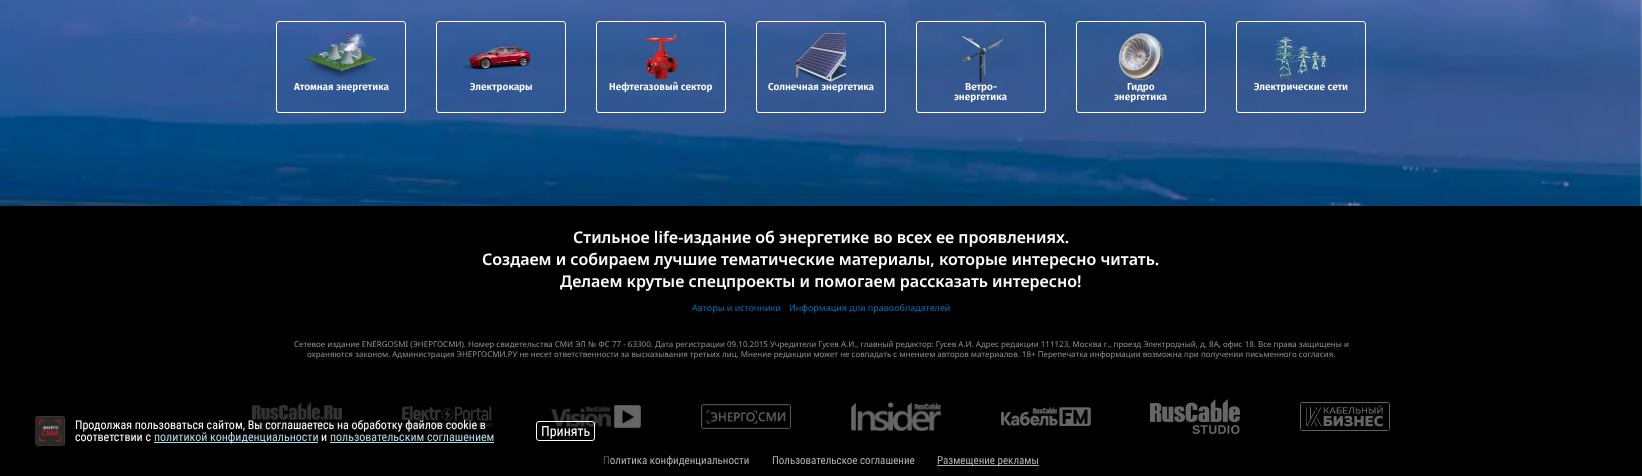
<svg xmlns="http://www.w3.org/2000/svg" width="1642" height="476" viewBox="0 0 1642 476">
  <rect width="100%" height="100%" fill="rgb(255,255,255)"/>
  <image x="0" y="0" width="1642" height="206" href="pic1.png"/>
  <rect x="276.5" y="21.5" width="129" height="91" rx="2.5" fill="none" stroke="rgb(255,255,255)"/>
  <image x="306" y="32" width="70" height="47" href="pic2.png"/>
  <text x="294" y="90" font-family="Fira Sans" font-size="10" font-weight="600" fill="rgb(255,255,255)">Атомная энергетика</text>
  <rect x="436.5" y="21.5" width="129" height="91" rx="2.5" fill="none" stroke="rgb(255,255,255)"/>
  <image x="461" y="46" width="70" height="24" href="pic3.png"/>
  <text x="470" y="90" font-family="Fira Sans" font-size="10" font-weight="600" fill="rgb(255,255,255)">Электрокары</text>
  <rect x="596.5" y="21.5" width="129" height="91" rx="2.5" fill="none" stroke="rgb(255,255,255)"/>
  <image x="645" y="33" width="33" height="46" href="pic4.png"/>
  <text x="609" y="90" font-family="Fira Sans" font-size="10" font-weight="600" fill="rgb(255,255,255)">Нефтегазовый сектор</text>
  <rect x="756.5" y="21.5" width="129" height="91" rx="2.5" fill="none" stroke="rgb(255,255,255)"/>
  <image x="796" y="33" width="50" height="49" href="pic5.png"/>
  <text x="768" y="90" font-family="Fira Sans" font-size="10" font-weight="600" fill="rgb(255,255,255)">Солнечная энергетика</text>
  <rect x="916.5" y="21.5" width="129" height="91" rx="2.5" fill="none" stroke="rgb(255,255,255)"/>
  <image x="962" y="35" width="42" height="47" href="pic6.png"/>
  <g font-family="Fira Sans" font-size="10" font-weight="600" fill="rgb(255,255,255)">
    <text x="965" y="90">Ветро-</text>
    <text x="954" y="100">энергетика</text>
  </g>
  <rect x="1076.5" y="21.5" width="129" height="91" rx="2.5" fill="none" stroke="rgb(255,255,255)"/>
  <image x="1118" y="33" width="46" height="47" href="pic7.png"/>
  <g font-family="Fira Sans" font-size="10" font-weight="600" fill="rgb(255,255,255)">
    <text x="1127" y="90">Гидро</text>
    <text x="1114" y="100">энергетика</text>
  </g>
  <rect x="1236.5" y="21.5" width="129" height="91" rx="2.5" fill="none" stroke="rgb(255,255,255)"/>
  <image x="1276" y="37" width="50" height="45" href="pic8.png"/>
  <text x="1254" y="90" font-family="Fira Sans" font-size="10" font-weight="600" fill="rgb(255,255,255)">Электрические сети</text>
  <rect x="0" y="206" width="1642" height="270" fill="rgb(0,0,0)"/>
  <g font-family="Noto Sans" font-size="16" font-weight="600" fill="rgb(255,255,255)">
    <text x="573" y="243">Стильное life-издание об энергетике во всех ее проявлениях.</text>
    <text x="482" y="265">Создаем и собираем лучшие тематические материалы, которые интересно читать.</text>
    <text x="560" y="287">Делаем крутые спецпроекты и помогаем рассказать интересно!</text>
  </g>
  <g font-family="Noto Sans" font-size="9" fill="rgb(1,112,185)">
    <text x="692" y="311">Авторы и источники</text>
    <text x="789" y="311">Информация для правообладателей</text>
  </g>
  <g font-family="Noto Sans" font-size="8" fill="rgb(144,144,144)">
    <text x="294" y="347">Сетевое издание ENERGOSMI (ЭНЕРГОСМИ). Номер свидетельства СМИ ЭЛ № ФС 77 - 63300. Дата регистрации 09.10.2015 Учредители Гусев А.И., главный редактор: Гусев А.И. Адрес редакции 111123, Москва г., проезд Электродный, д. 8А, офис 18. Все права защищены и</text>
    <text x="307" y="357">охраняются законом. Администрация ЭНЕРГОСМИ.РУ не несет ответственности за высказывания третьих лиц. Мнение редакции может не совпадать с мнением авторов материалов. 18+ Перепечатка информации возможна при получении письменного согласия.</text>
  </g>
  <image x="252" y="402" width="90" height="29" href="pic10.png"/>
  <image x="402" y="406" width="90" height="21" href="pic11.png"/>
  <image x="551" y="405" width="90" height="23" href="pic12.png"/>
  <text x="603" y="464" font-family="Roboto Condensed" font-size="11" fill="rgb(177,177,177)">Политика конфиденциальности</text>
  <rect x="10" y="396" width="600" height="70" rx="5" fill="rgba(0,0,0,0.5)"/>
  <image x="35" y="416" width="30" height="30" href="pic9.png"/>
  <g font-family="Roboto Condensed" font-size="12" fill="rgb(255,255,255)">
    <text>
      <tspan x="75" y="429">Продолжая пользоваться сайтом, Вы соглашаетесь на обработку файлов cookie в</tspan>
      <tspan x="75" y="441">соответствии с</tspan>
    </text>
  </g>
  <rect x="154" y="442" width="164" height="1" fill="rgb(173,216,230)"/>
  <text x="154" y="441" font-family="Roboto Condensed" font-size="12" fill="rgb(173,216,230)">политикой конфиденциальности</text>
  <text x="321" y="441" font-family="Roboto Condensed" font-size="12" fill="rgb(255,255,255)">и</text>
  <text x="330" y="441" font-family="Roboto Condensed" font-size="12" fill="rgb(173,216,230)">пользовательским соглашением</text>
  <rect x="330" y="442" width="164" height="1" fill="rgb(173,216,230)"/>
  <rect x="536.5" y="421.5" width="58" height="19" rx="2.5" fill="none" stroke="rgb(255,255,255)"/>
  <text x="541" y="436" font-family="Roboto Condensed" font-size="14" fill="rgb(255,255,255)">Принять</text>
  <image x="701" y="404" width="90" height="25" href="pic13.png"/>
  <image x="851" y="402" width="90" height="29" href="pic14.png"/>
  <image x="1001" y="407" width="90" height="19" href="pic15.png"/>
  <image x="1150" y="399" width="90" height="35" href="pic16.png"/>
  <image x="1300" y="402" width="90" height="29" href="pic17.png"/>
  <text x="772" y="464" font-family="Roboto Condensed" font-size="11" fill="rgb(177,177,177)">Пользовательское соглашение</text>
  <rect x="937" y="465" width="102" height="1" fill="rgb(177,177,177)"/>
  <text x="937" y="464" font-family="Roboto Condensed" font-size="11" fill="rgb(177,177,177)">Размещение рекламы</text>
</svg>
